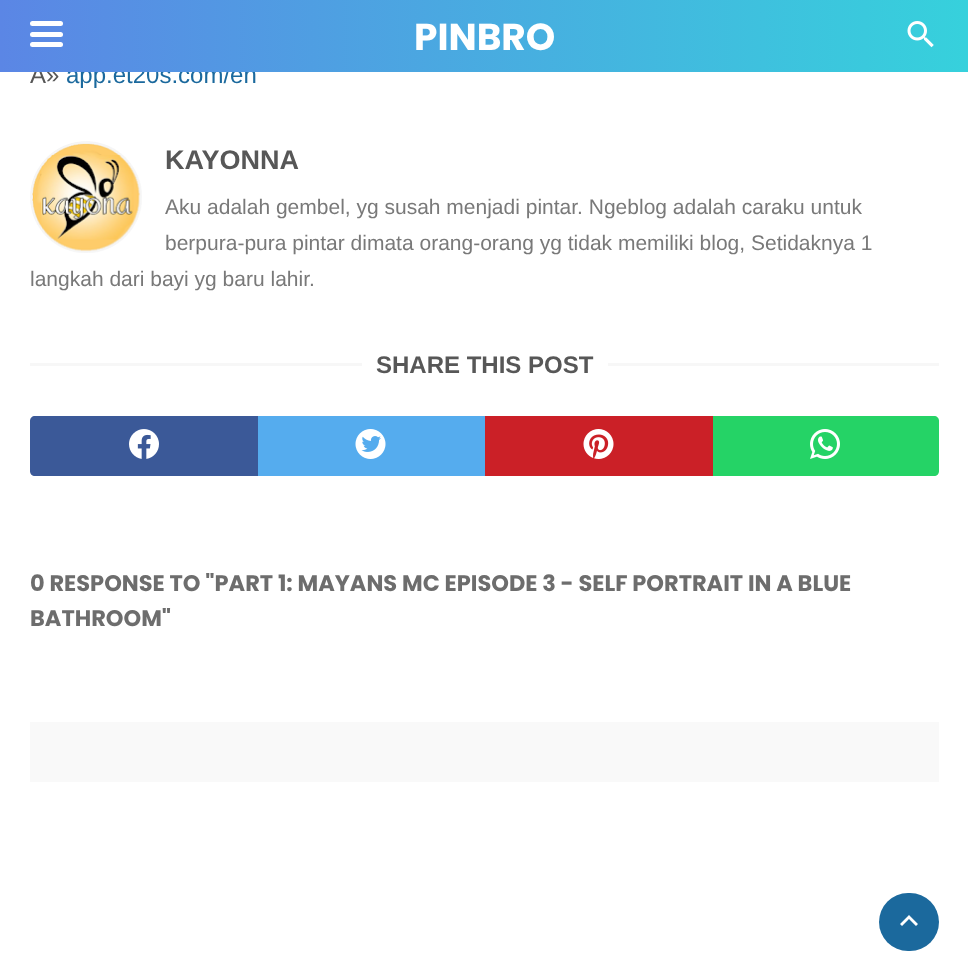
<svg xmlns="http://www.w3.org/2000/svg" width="968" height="980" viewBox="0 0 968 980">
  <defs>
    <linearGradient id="g1" gradientUnits="userSpaceOnUse" x1="0" y1="36" x2="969" y2="36"><stop offset="0" stop-color="rgb(91,134,229)"/><stop offset="1" stop-color="rgb(54,209,220)"/></linearGradient>
  </defs>
  <rect width="100%" height="100%" fill="rgb(255,255,255)"/>
  <text x="30" y="83" font-family="Liberation Sans" font-size="24" fill="rgb(87,87,87)">Â»</text>
  <text x="66" y="83" font-family="Liberation Sans" font-size="24" fill="rgb(27,105,157)">app.et20s.com/en</text>
  <rect x="0" y="0" width="968" height="72" fill="url(#g1)"/>
  <rect x="30" y="21" width="33" height="5" rx="2.5" fill="rgb(255,255,255)"/>
  <rect x="30" y="32" width="33" height="5" rx="2.5" fill="rgb(255,255,255)"/>
  <rect x="30" y="42" width="33" height="5" rx="2.5" fill="rgb(255,255,255)"/>
  <text x="414" y="50" font-family="Poppins" font-size="37.5" font-weight="bold" fill="rgb(255,255,255)">PINBRO</text>
  <image x="907" y="21" width="27" height="27" href="pic1.png"/>
  <image x="30" y="141" width="112" height="112" href="pic2.png"/>
  <text x="165" y="169" font-family="Liberation Sans" font-size="27" font-weight="bold" fill="rgb(87,87,87)">KAYONNA</text>
  <g font-family="Liberation Sans" font-size="21" fill="rgb(121,121,121)">
    <text>
      <tspan x="165" y="214">Aku adalah gembel, yg susah menjadi pintar. Ngeblog adalah caraku untuk</tspan>
      <tspan x="165" y="250">berpura-pura pintar dimata orang-orang yg tidak memiliki blog, Setidaknya 1</tspan>
    </text>
    <text x="30" y="286">langkah dari bayi yg baru lahir.</text>
  </g>
  <rect x="30" y="363" width="909" height="3" fill="rgb(247,247,247)"/>
  <rect x="362" y="363" width="246" height="3" fill="rgb(255,255,255)"/>
  <text x="376" y="373" font-family="Liberation Sans" font-size="24" font-weight="bold" fill="rgb(87,87,87)">SHARE THIS POST</text>
  <path d="M35 416H258V476H35C32 476 30 474 30 471V421C30 418 32 416 35 416Z" fill="rgb(59,89,152)"/>
  <image x="129" y="429" width="30" height="30" href="pic3.png"/>
  <rect x="258" y="416" width="227" height="60" fill="rgb(85,172,238)"/>
  <image x="355" y="429" width="31" height="30" href="pic4.png"/>
  <rect x="485" y="416" width="228" height="60" fill="rgb(203,32,39)"/>
  <image x="583" y="429" width="31" height="30" href="pic5.png"/>
  <path d="M713 416H934C937 416 939 418 939 421V471C939 474 937 476 934 476H713Z" fill="rgb(37,211,102)"/>
  <image x="810" y="429" width="30" height="30" href="pic6.png"/>
  <g font-family="Poppins" font-size="22.5" font-weight="bold" fill="rgb(109,109,109)">
    <text>
      <tspan x="30" y="591">0 RESPONSE TO "PART 1: MAYANS MC EPISODE 3 - SELF PORTRAIT IN A BLUE</tspan>
      <tspan x="30" y="626">BATHROOM"</tspan>
    </text>
  </g>
  <rect x="30" y="722" width="909" height="60" fill="rgb(249,249,249)"/>
  <rect x="879" y="893" width="60" height="58" rx="29" fill="rgb(27,105,157)"/>
  <path d="M902 926L909 919L916 926L918 924L909 915L900 924Z" fill="rgb(255,255,255)"/>
</svg>
